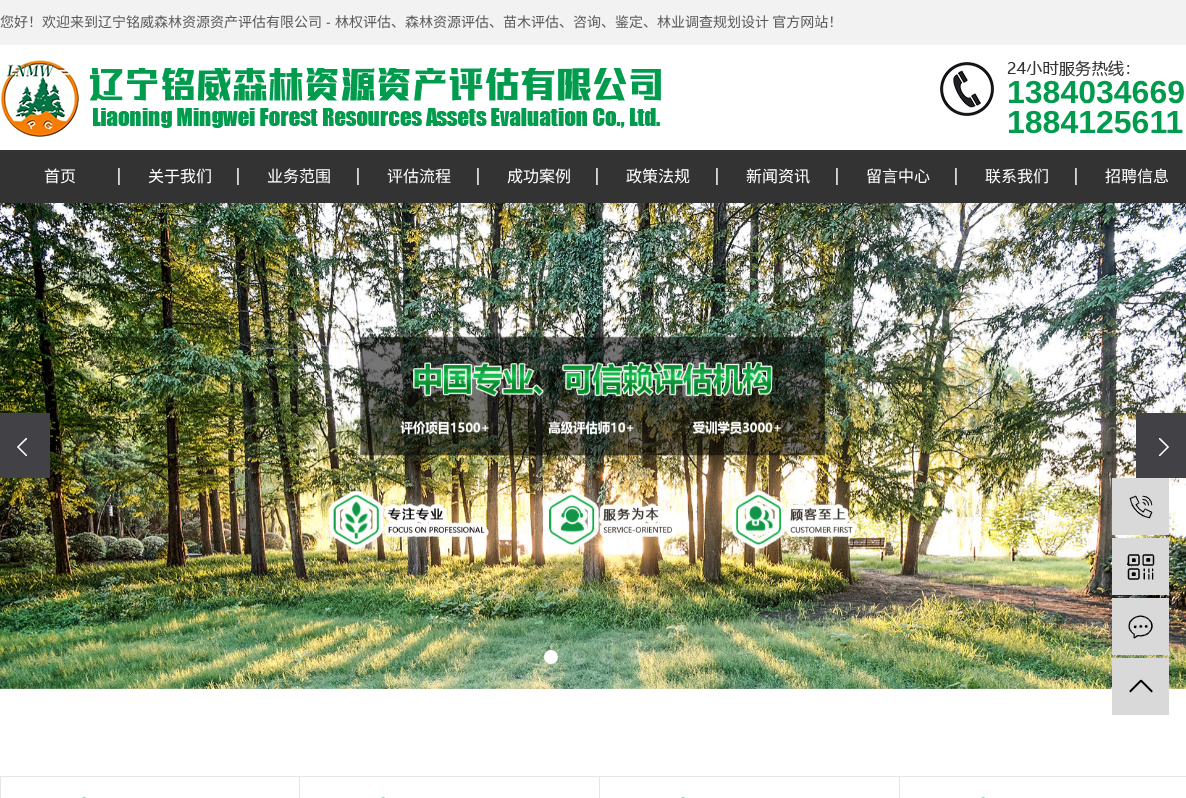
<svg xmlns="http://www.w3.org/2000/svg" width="1186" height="798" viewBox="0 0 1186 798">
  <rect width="100%" height="100%" fill="rgb(255,255,255)"/>
  <rect x="0" y="0" width="1186" height="45" fill="rgb(242,242,242)"/>
  <text x="0" y="27" font-family="Noto Sans CJK SC" font-size="14" fill="rgb(90,90,90)">您好！欢迎来到辽宁铭威森林资源资产评估有限公司</text>
  <text x="326" y="27" font-family="Liberation Sans" font-size="14" fill="rgb(90,90,90)">-</text>
  <text x="335" y="27" font-family="Noto Sans CJK SC" font-size="14" fill="rgb(90,90,90)">林权评估、森林资源评估、苗木评估、咨询、鉴定、林业调查规划设计 官方网站！</text>
  <image x="0" y="59" width="661" height="78" href="pic1.png"/>
  <image x="940" y="60" width="190" height="56" href="pic2.png"/>
  <g font-family="Liberation Sans" font-size="32" font-weight="bold" fill="rgb(0,155,76)">
    <text>
      <tspan x="1007" y="103">1384034669</tspan>
      <tspan x="1007" y="133">1884125611</tspan>
    </text>
  </g>
  <rect x="0" y="150" width="1186" height="53" fill="rgb(51,51,51)"/>
  <image x="118" y="168" width="2" height="17" href="pic3.png"/>
  <text x="44" y="182" font-family="Noto Sans CJK SC" font-size="16" fill="rgb(255,255,255)">首页</text>
  <image x="237" y="168" width="2" height="17" href="pic3.png"/>
  <text x="148" y="182" font-family="Noto Sans CJK SC" font-size="16" fill="rgb(255,255,255)">关于我们</text>
  <image x="357" y="168" width="2" height="17" href="pic3.png"/>
  <text x="267" y="182" font-family="Noto Sans CJK SC" font-size="16" fill="rgb(255,255,255)">业务范围</text>
  <image x="477" y="168" width="2" height="17" href="pic3.png"/>
  <text x="387" y="182" font-family="Noto Sans CJK SC" font-size="16" fill="rgb(255,255,255)">评估流程</text>
  <image x="596" y="168" width="2" height="17" href="pic3.png"/>
  <text x="507" y="182" font-family="Noto Sans CJK SC" font-size="16" fill="rgb(255,255,255)">成功案例</text>
  <image x="716" y="168" width="2" height="17" href="pic3.png"/>
  <text x="626" y="182" font-family="Noto Sans CJK SC" font-size="16" fill="rgb(255,255,255)">政策法规</text>
  <image x="836" y="168" width="2" height="17" href="pic3.png"/>
  <text x="746" y="182" font-family="Noto Sans CJK SC" font-size="16" fill="rgb(255,255,255)">新闻资讯</text>
  <image x="955" y="168" width="2" height="17" href="pic3.png"/>
  <text x="866" y="182" font-family="Noto Sans CJK SC" font-size="16" fill="rgb(255,255,255)">留言中心</text>
  <image x="1075" y="168" width="2" height="17" href="pic3.png"/>
  <g font-family="Noto Sans CJK SC" font-size="16" fill="rgb(255,255,255)">
    <text x="985" y="182">联系我们</text>
    <text x="1105" y="182">招聘信息</text>
  </g>
  <image x="0" y="203" width="1186" height="486" href="pic4.png"/>
  <rect x="0" y="413" width="50" height="65" fill="rgb(66,66,70)"/>
  <image x="17" y="438" width="10" height="18" href="pic5.png"/>
  <rect x="1136" y="413" width="50" height="65" fill="rgb(66,66,70)"/>
  <image x="1159" y="438" width="10" height="18" href="pic6.png"/>
  <circle cx="551" cy="657" r="7" fill="rgb(255,255,255)"/>
  <circle cx="579" cy="657" r="7" fill="rgba(255,255,255,0.2)"/>
  <circle cx="607" cy="657" r="7" fill="rgba(255,255,255,0.2)"/>
  <circle cx="635" cy="657" r="7" fill="rgba(255,255,255,0.2)"/>
  <rect x="1112" y="478" width="57" height="57" fill="rgb(217,217,217)"/>
  <image x="1129" y="495" width="24" height="24" href="pic7.png"/>
  <rect x="1112" y="538" width="57" height="57" fill="rgb(217,217,217)"/>
  <image x="1127" y="554" width="28" height="26" href="pic8.png"/>
  <rect x="1112" y="598" width="57" height="57" fill="rgb(217,217,217)"/>
  <image x="1128" y="615" width="25" height="24" href="pic9.png"/>
  <rect x="1112" y="658" width="57" height="57" fill="rgb(217,217,217)"/>
  <image x="1129" y="679" width="24" height="14" href="pic10.png"/>
  <rect x="0.5" y="776.5" width="299" height="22" fill="none" stroke="rgb(230,230,230)"/>
  <image x="82" y="797" width="4" height="1" href="pic11.png"/>
  <rect x="300" y="776" width="886" height="1" fill="rgb(230,230,230)"/>
  <rect x="599" y="776" width="1" height="22" fill="rgb(230,230,230)"/>
  <image x="381" y="797" width="4" height="1" href="pic11.png"/>
  <rect x="899" y="776" width="1" height="22" fill="rgb(230,230,230)"/>
  <image x="681" y="797" width="4" height="1" href="pic11.png"/>
  <image x="981" y="797" width="4" height="1" href="pic11.png"/>
</svg>
